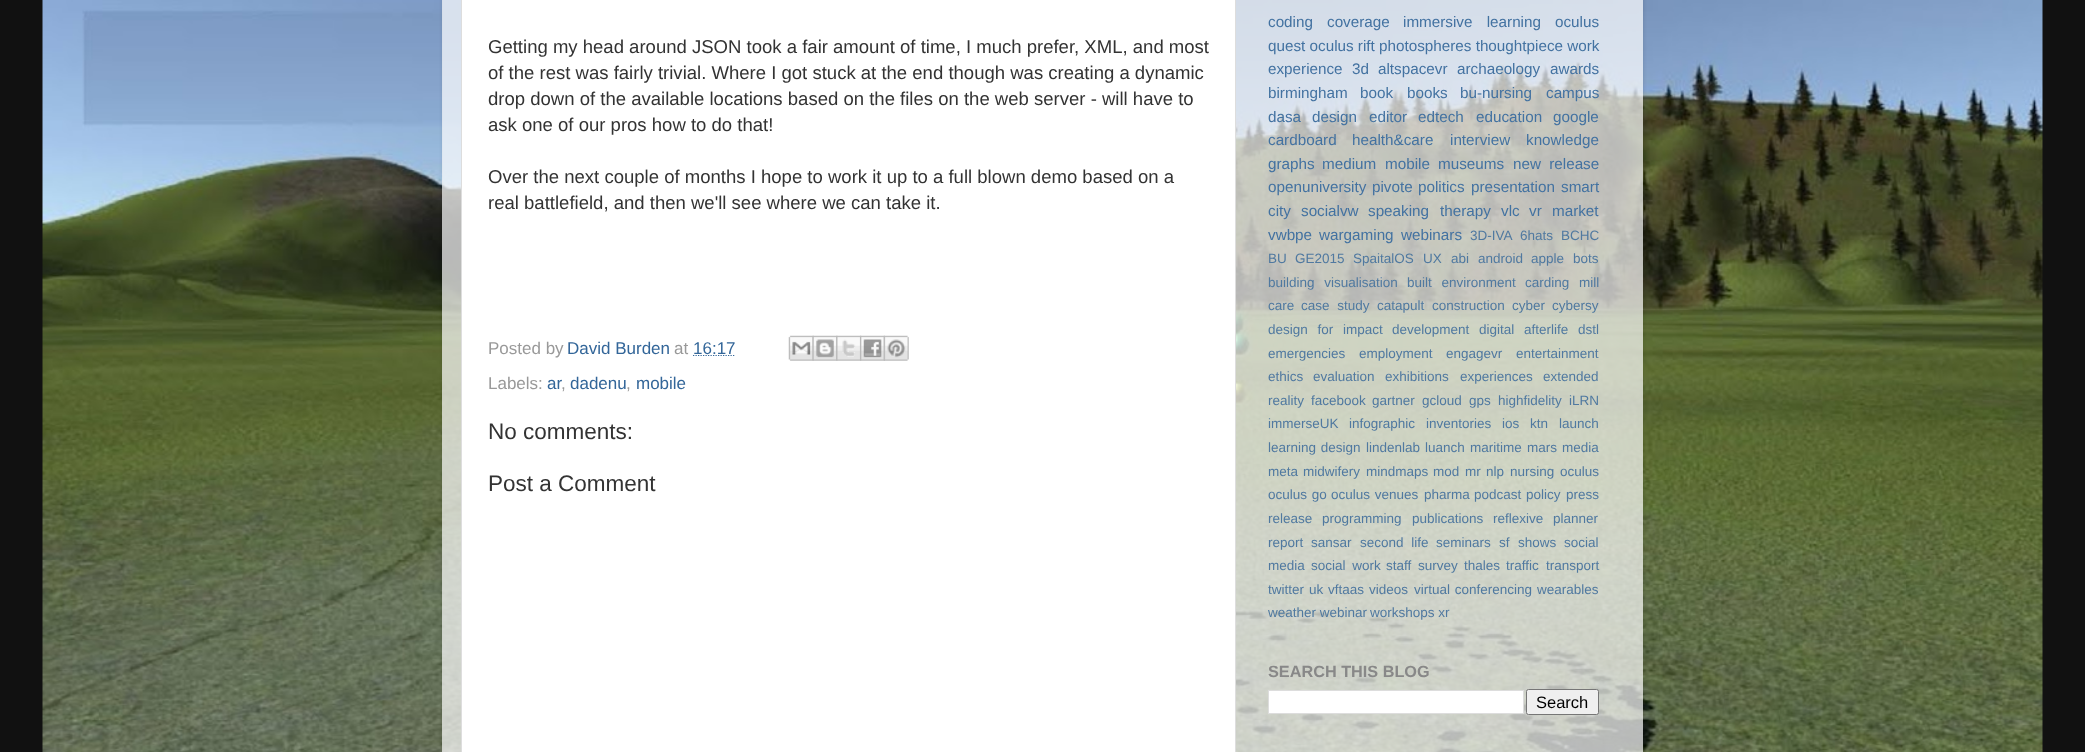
<svg xmlns="http://www.w3.org/2000/svg" width="2085" height="752" viewBox="0 0 2085 752">
  <defs>
    <clipPath id="clip1"><path d="M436 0H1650V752H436ZM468-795H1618C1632-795 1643-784 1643-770V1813H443V-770C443-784 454-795 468-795Z" clip-rule="evenodd"/></clipPath>
  </defs>
  <rect width="100%" height="100%" fill="rgb(17,17,17)"/>
  <image x="42" y="0" width="2001" height="752" href="pic1.png"/>
  <g clip-path="url(#clip1)">
    <rect x="443" y="-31" width="1200" height="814" rx="25" fill="rgba(0,0,0,0.15)" filter="blur(2px)"/>
  </g>
  <rect x="442" y="0" width="1201" height="752" fill="rgba(255,255,255,0.7)"/>
  <rect x="461.5" y="-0.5" width="774" height="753" fill="rgb(255,255,255)" stroke="rgb(221,221,221)"/>
  <g font-family="Liberation Sans" font-size="18.55" fill="rgb(51,51,51)">
    <text>
      <tspan x="488" y="53">Getting my head around JSON took a fair amount of time, I much prefer, XML, and most</tspan>
      <tspan x="488" y="79">of the rest was fairly trivial. Where I got stuck at the end though was creating a dynamic</tspan>
      <tspan x="488" y="105">drop down of the available locations based on the files on the web server - will have to</tspan>
      <tspan x="488" y="131">ask one of our pros how to do that!</tspan>
    </text>
    <text>
      <tspan x="488" y="183">Over the next couple of months I hope to work it up to a full blown demo based on a</tspan>
      <tspan x="488" y="209">real battlefield, and then we'll see where we can take it.</tspan>
    </text>
  </g>
  <text x="488" y="354" font-family="Liberation Sans" font-size="17" fill="rgb(153,153,153)">Posted by</text>
  <text x="567" y="354" font-family="Liberation Sans" font-size="17" fill="rgb(51,102,153)">David Burden</text>
  <text x="674" y="354" font-family="Liberation Sans" font-size="17" fill="rgb(153,153,153)">at</text>
  <path d="M693 355.5H735" fill="none" stroke="rgb(51,102,153)" stroke-width="1.2" stroke-dasharray="1.25 1.25"/>
  <text x="693" y="354" font-family="Liberation Sans" font-size="17" fill="rgb(51,102,153)">16:17</text>
  <image x="788" y="335" width="26" height="26" href="pic2.png"/>
  <image x="812" y="335" width="26" height="26" href="pic3.png"/>
  <image x="836" y="335" width="26" height="26" href="pic4.png"/>
  <image x="860" y="335" width="25" height="26" href="pic5.png"/>
  <image x="883" y="335" width="26" height="26" href="pic6.png"/>
  <text x="488" y="389" font-family="Liberation Sans" font-size="17" fill="rgb(153,153,153)">Labels:</text>
  <text x="547" y="389" font-family="Liberation Sans" font-size="17" fill="rgb(51,102,153)">ar</text>
  <text x="561" y="389" font-family="Liberation Sans" font-size="17" fill="rgb(153,153,153)">,</text>
  <text x="570" y="389" font-family="Liberation Sans" font-size="17" fill="rgb(51,102,153)">dadenu</text>
  <text x="626" y="389" font-family="Liberation Sans" font-size="17" fill="rgb(153,153,153)">,</text>
  <text x="636" y="389" font-family="Liberation Sans" font-size="17" fill="rgb(51,102,153)">mobile</text>
  <g font-family="Liberation Sans" font-size="22.5" fill="rgb(51,51,51)">
    <text x="488" y="439">No comments:</text>
    <text x="488" y="491">Post a Comment</text>
  </g>
  <g font-family="Liberation Sans" font-size="15.25" fill="rgb(67,114,161)">
    <text x="1268" y="27">coding</text>
    <text x="1327" y="27">coverage</text>
    <text x="1403" y="27" word-spacing="10">immersive learning</text>
    <text x="1555" y="27">oculus</text>
    <text x="1268" y="51">quest oculus rift</text>
    <text x="1379" y="51">photospheres thoughtpiece work</text>
    <text x="1268" y="74">experience</text>
    <text x="1352" y="74">3d</text>
    <text x="1378" y="74">altspacevr</text>
    <text x="1457" y="74">archaeology</text>
    <text x="1550" y="74">awards</text>
    <text x="1268" y="98">birmingham</text>
    <text x="1360" y="98">book</text>
    <text x="1407" y="98">books</text>
    <text x="1460" y="98">bu-nursing</text>
    <text x="1546" y="98">campus</text>
    <text x="1268" y="122">dasa</text>
    <text x="1312" y="122">design</text>
    <text x="1369" y="122">editor</text>
    <text x="1418" y="122">edtech</text>
    <text x="1476" y="122">education</text>
    <text x="1553" y="122">google</text>
    <text x="1268" y="145">cardboard</text>
    <text x="1352" y="145">health&amp;care</text>
    <text x="1450" y="145">interview</text>
    <text x="1526" y="145">knowledge</text>
    <text x="1268" y="169">graphs</text>
    <text x="1322" y="169">medium</text>
    <text x="1385" y="169">mobile</text>
    <text x="1438" y="169">museums</text>
    <text x="1513" y="169" word-spacing="4">new release</text>
    <text x="1268" y="192">openuniversity</text>
    <text x="1372" y="192">pivote</text>
    <text x="1418" y="192">politics</text>
    <text x="1471" y="192">presentation</text>
    <text x="1561" y="192">smart</text>
    <text x="1268" y="216">city</text>
    <text x="1301" y="216">socialvw</text>
    <text x="1368" y="216">speaking</text>
    <text x="1440" y="216">therapy</text>
    <text x="1501" y="216">vlc</text>
    <text x="1529" y="216" word-spacing="6">vr market</text>
    <text x="1268" y="240">vwbpe</text>
    <text x="1319" y="240">wargaming</text>
    <text x="1401" y="240">webinars</text>
  </g>
  <g font-family="Liberation Sans" font-size="13.5" fill="rgb(80,121,160)">
    <text x="1470" y="240">3D-IVA</text>
    <text x="1520" y="240">6hats</text>
    <text x="1561" y="240">BCHC</text>
    <text x="1268" y="263">BU</text>
    <text x="1295" y="263">GE2015</text>
    <text x="1353" y="263">SpaitalOS</text>
    <text x="1423" y="263">UX</text>
    <text x="1451" y="263">abi</text>
    <text x="1478" y="263">android</text>
    <text x="1531" y="263">apple</text>
    <text x="1573" y="263">bots</text>
    <text x="1268" y="287" word-spacing="6">building visualisation</text>
    <text x="1407" y="287" word-spacing="6">built environment</text>
    <text x="1525" y="287" word-spacing="6">carding mill</text>
    <text x="1268" y="310">care</text>
    <text x="1301" y="310" word-spacing="4">case study</text>
    <text x="1377" y="310">catapult</text>
    <text x="1432" y="310">construction</text>
    <text x="1512" y="310">cyber</text>
    <text x="1552" y="310">cybersy</text>
    <text x="1268" y="334" word-spacing="6">design for impact</text>
    <text x="1392" y="334">development</text>
    <text x="1479" y="334" word-spacing="6">digital afterlife</text>
    <text x="1578" y="334">dstl</text>
    <text x="1268" y="358">emergencies</text>
    <text x="1359" y="358">employment</text>
    <text x="1446" y="358">engagevr</text>
    <text x="1516" y="358">entertainment</text>
    <text x="1268" y="381">ethics</text>
    <text x="1313" y="381">evaluation</text>
    <text x="1385" y="381">exhibitions</text>
    <text x="1460" y="381">experiences</text>
    <text x="1543" y="381">extended</text>
    <text x="1268" y="405">reality</text>
    <text x="1311" y="405">facebook</text>
    <text x="1372" y="405">gartner</text>
    <text x="1422" y="405">gcloud</text>
    <text x="1469" y="405">gps</text>
    <text x="1498" y="405">highfidelity</text>
    <text x="1569" y="405">iLRN</text>
    <text x="1268" y="428">immerseUK</text>
    <text x="1349" y="428">infographic</text>
    <text x="1426" y="428">inventories</text>
    <text x="1502" y="428">ios</text>
    <text x="1530" y="428">ktn</text>
    <text x="1559" y="428">launch</text>
    <text x="1268" y="452" word-spacing="1">learning design</text>
    <text x="1366" y="452">lindenlab</text>
    <text x="1425" y="452">luanch</text>
    <text x="1470" y="452">maritime</text>
    <text x="1527" y="452">mars</text>
    <text x="1562" y="452">media</text>
    <text x="1268" y="476">meta</text>
    <text x="1303" y="476">midwifery</text>
    <text x="1366" y="476">mindmaps</text>
    <text x="1433" y="476">mod</text>
    <text x="1465" y="476">mr</text>
    <text x="1486" y="476">nlp</text>
    <text x="1510" y="476">nursing</text>
    <text x="1560" y="476">oculus</text>
    <text x="1268" y="499" word-spacing="1">oculus go</text>
    <text x="1331" y="499" word-spacing="1">oculus venues</text>
    <text x="1424" y="499">pharma</text>
    <text x="1474" y="499">podcast</text>
    <text x="1526" y="499">policy</text>
    <text x="1566" y="499">press</text>
    <text x="1268" y="523">release</text>
    <text x="1322" y="523">programming</text>
    <text x="1412" y="523">publications</text>
    <text x="1493" y="523" word-spacing="6">reflexive planner</text>
    <text x="1268" y="547">report</text>
    <text x="1311" y="547">sansar</text>
    <text x="1360" y="547" word-spacing="4">second life</text>
    <text x="1436" y="547">seminars</text>
    <text x="1499" y="547">sf</text>
    <text x="1518" y="547">shows</text>
    <text x="1564" y="547">social</text>
    <text x="1268" y="570">media</text>
    <text x="1311" y="570" word-spacing="3">social work</text>
    <text x="1386" y="570">staff</text>
    <text x="1418" y="570">survey</text>
    <text x="1464" y="570">thales</text>
    <text x="1506" y="570">traffic</text>
    <text x="1546" y="570">transport</text>
    <text x="1268" y="594">twitter</text>
    <text x="1309" y="594">uk</text>
    <text x="1328" y="594">vftaas</text>
    <text x="1369" y="594">videos</text>
    <text x="1414" y="594" word-spacing="1">virtual conferencing</text>
    <text x="1537" y="594">wearables</text>
    <text x="1268" y="617">weather webinar</text>
    <text x="1370" y="617">workshops xr</text>
  </g>
  <text x="1268" y="677" font-family="Liberation Sans" font-size="16.25" font-weight="bold" fill="rgb(136,136,136)">SEARCH THIS BLOG</text>
  <rect x="1268.5" y="690.5" width="255" height="23" fill="rgb(255,255,255)" stroke="rgb(221,221,221)"/>
  <rect x="1526.5" y="689.5" width="72" height="25" rx="2" fill="rgb(239,239,239)" stroke="rgb(118,118,118)"/>
  <text x="1536" y="708" font-family="Liberation Sans" font-size="16.5" fill="rgb(0,0,0)">Search</text>
</svg>
